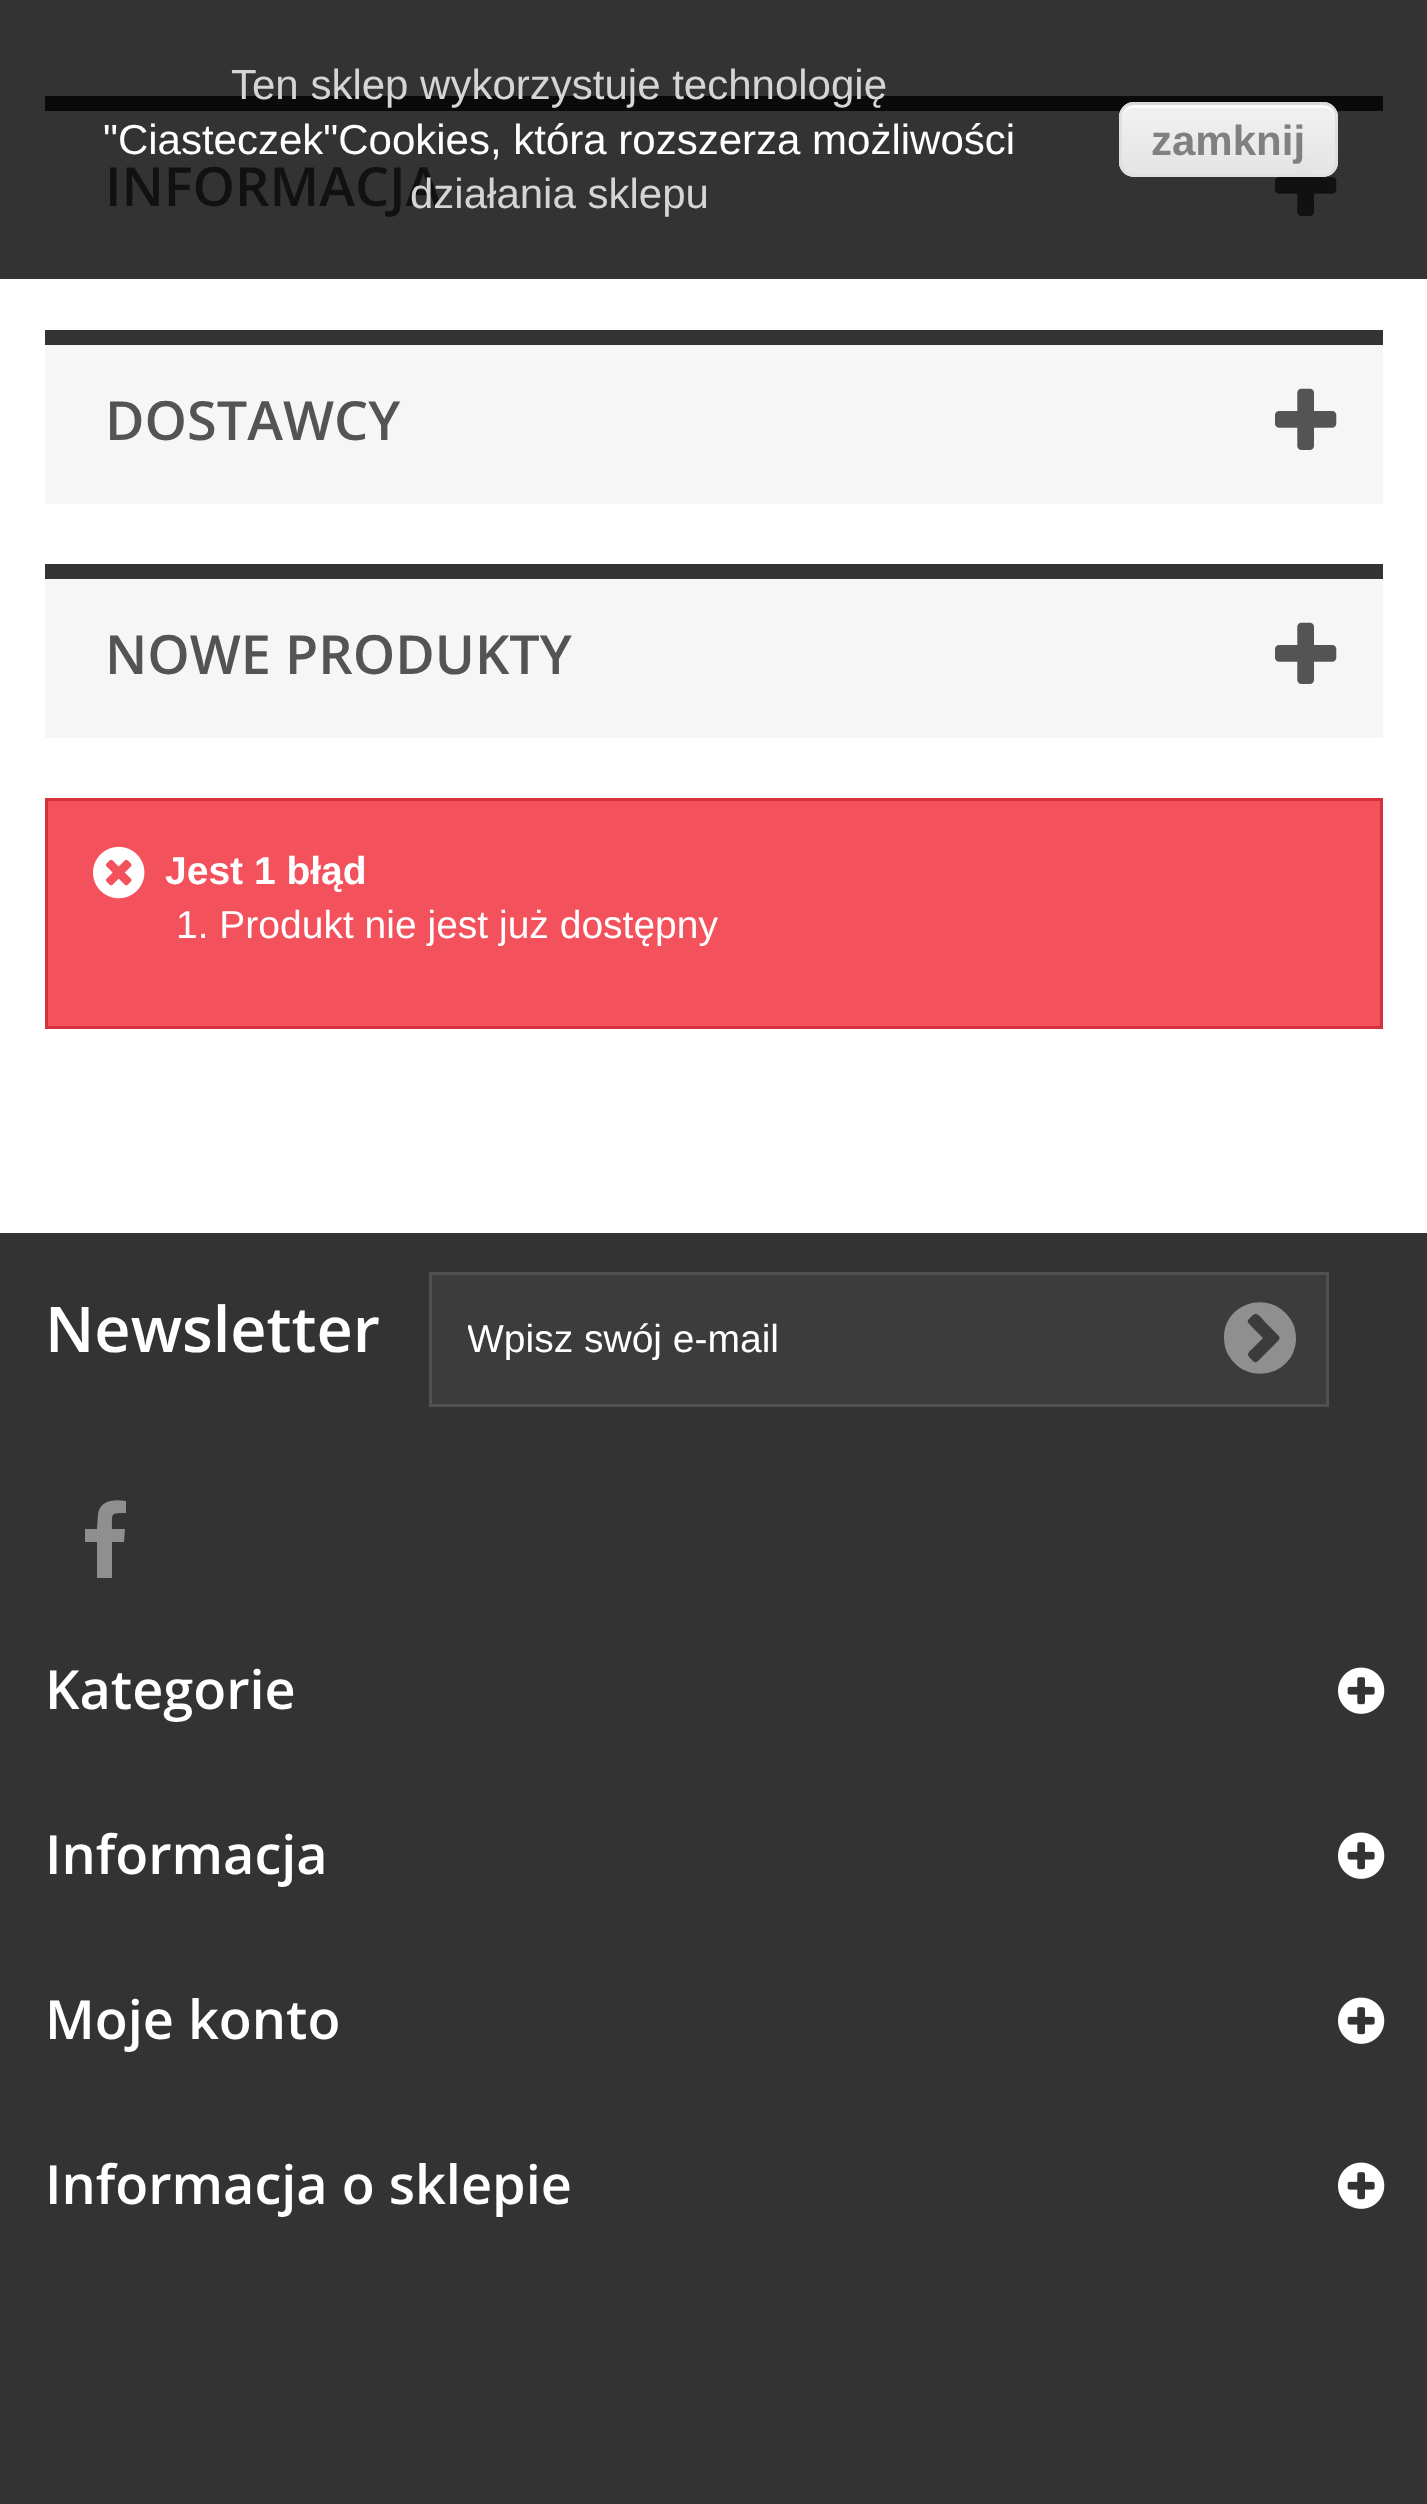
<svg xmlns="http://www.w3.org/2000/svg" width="1427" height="2504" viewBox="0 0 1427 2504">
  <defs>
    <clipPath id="clip1"><rect x="1119" y="102" width="219" height="75" rx="15"/></clipPath>
    <linearGradient id="g1" gradientUnits="userSpaceOnUse" x1="1122" y1="36" x2="1122" y2="105"><stop offset="0.05" stop-color="rgb(209,209,209)"/><stop offset="1" stop-color="rgb(197,197,197)"/></linearGradient>
    <linearGradient id="g2" gradientUnits="userSpaceOnUse" x1="1122" y1="105" x2="1122" y2="174"><stop offset="0.05" stop-color="rgb(249,249,249)" stop-opacity="0.8"/><stop offset="1" stop-color="rgb(233,233,233)" stop-opacity="0.8"/></linearGradient>
    <linearGradient id="g3" gradientUnits="userSpaceOnUse" x1="1122" y1="174" x2="1122" y2="243"><stop offset="0.05" stop-color="rgb(249,249,249)" stop-opacity="0.8"/><stop offset="1" stop-color="rgb(233,233,233)" stop-opacity="0.8"/></linearGradient>
    <clipPath id="clip2"><rect x="468" y="1317" width="729" height="45"/></clipPath>
  </defs>
  <rect width="100%" height="100%" fill="rgb(255,255,255)"/>
  <rect x="0" y="0" width="1427" height="279" fill="rgb(51,51,51)"/>
  <rect x="0" y="1233" width="1427" height="1271" fill="rgb(51,51,51)"/>
  <rect x="45" y="96" width="1338" height="15" fill="rgb(10,10,10)"/>
  <text x="231" y="99" font-family="Liberation Sans" font-size="42" fill="rgb(213,213,213)">Ten sklep wykorzystuje technologię</text>
  <text x="103" y="154" font-family="Liberation Sans" font-size="42" fill="rgb(255,255,255)">"Ciasteczek"Cookies, która rozszerza możliwości</text>
  <text x="105" y="206" font-family="Open Sans" font-size="54" font-weight="600" fill="rgb(17,17,17)">INFORMACJA</text>
  <text x="410" y="208" font-family="Liberation Sans" font-size="42" fill="rgb(213,213,213)">działania sklepu</text>
  <image x="1275" y="154" width="62" height="62" href="pic2.png"/>
  <rect x="1119" y="102" width="219" height="75" rx="15" fill="rgba(249,249,249,0.8)"/>
  <g clip-path="url(#clip1)">
    <rect x="1119" y="102" width="219" height="3" fill="url(#g1)"/>
    <rect x="1119" y="105" width="219" height="69" fill="url(#g2)"/>
    <rect x="1119" y="174" width="219" height="3" fill="url(#g3)"/>
  </g>
  <path d="M1134 108H1323C1330 108 1335 113 1335 120V117C1335 110 1330 105 1323 105H1134C1127 105 1122 110 1122 117V120C1122 113 1127 108 1134 108Z" fill="rgb(252,252,252)"/>
  <rect x="1120.5" y="103.5" width="216" height="72" rx="13.5" fill="none" stroke="rgba(220,220,220,0.8)" stroke-width="3"/>
  <text x="1151" y="155" font-family="Liberation Sans" font-size="42" font-weight="bold" fill="rgb(128,128,128)">zamknij</text>
  <text x="45" y="1352" font-family="Open Sans" font-size="63" font-weight="600" fill="rgb(255,255,255)">Newsletter</text>
  <rect x="430.5" y="1273.5" width="897" height="132" fill="rgb(60,60,60)" stroke="rgb(81,81,81)" stroke-width="3"/>
  <g clip-path="url(#clip2)">
    <text x="467" y="1352" font-family="Liberation Sans" font-size="39" fill="rgb(255,255,255)">Wpisz swój e-mail</text>
  </g>
  <path d="M1258 1361L1275 1344C1281 1338 1281 1338 1275 1332L1265 1322C1260 1317 1257 1311 1252 1316C1247 1321 1246 1321 1251 1326L1263 1338L1251 1350C1247 1354 1247 1355 1251 1359C1253 1361 1255 1364 1258 1361ZM1291 1320C1295 1326 1296 1333 1296 1340C1294 1376 1247 1386 1229 1356C1225 1350 1224 1343 1224 1336C1226 1300 1273 1290 1291 1320Z" fill="rgb(144,143,143)"/>
  <path d="M126 1501V1513C110 1513 112 1513 112 1529H125L124 1542H112V1578H97V1542H85V1529H97L98 1514C100 1500 114 1499 126 1501Z" fill="rgb(144,143,143)"/>
  <text x="45" y="1709" font-family="Open Sans" font-size="54" font-weight="600" fill="rgb(255,255,255)">Kategorie</text>
  <image x="1338" y="1667" width="47" height="47" href="pic1.png"/>
  <text x="45" y="1874" font-family="Open Sans" font-size="54" font-weight="600" fill="rgb(255,255,255)">Informacja</text>
  <image x="1338" y="1832" width="47" height="47" href="pic1.png"/>
  <text x="45" y="2039" font-family="Open Sans" font-size="54" font-weight="600" fill="rgb(255,255,255)">Moje konto</text>
  <image x="1338" y="1997" width="47" height="47" href="pic1.png"/>
  <text x="45" y="2204" font-family="Open Sans" font-size="54" font-weight="600" fill="rgb(255,255,255)">Informacja o sklepie</text>
  <image x="1338" y="2162" width="47" height="47" href="pic1.png"/>
  <rect x="45" y="345" width="1338" height="159" fill="rgb(246,246,246)"/>
  <rect x="45" y="330" width="1338" height="15" fill="rgb(51,51,51)"/>
  <text x="105" y="440" font-family="Open Sans" font-size="54" font-weight="600" fill="rgb(85,84,84)">DOSTAWCY</text>
  <image x="1275" y="388" width="62" height="62" href="pic3.png"/>
  <rect x="45" y="579" width="1338" height="159" fill="rgb(246,246,246)"/>
  <rect x="45" y="564" width="1338" height="15" fill="rgb(51,51,51)"/>
  <text x="105" y="674" font-family="Open Sans" font-size="54" font-weight="600" fill="rgb(85,84,84)">NOWE PRODUKTY</text>
  <image x="1275" y="622" width="62" height="62" href="pic3.png"/>
  <rect x="46.5" y="799.5" width="1335" height="228" fill="rgb(243,81,92)" stroke="rgb(212,50,61)" stroke-width="3"/>
  <image x="93" y="846" width="52" height="53" href="pic4.png"/>
  <text x="165" y="884" font-family="Liberation Sans" font-size="39" font-weight="bold" fill="rgb(255,255,255)">Jest 1 błąd</text>
  <text x="176" y="938" font-family="Liberation Sans" font-size="39" fill="rgb(255,255,255)">1. Produkt nie jest już dostępny</text>
</svg>
